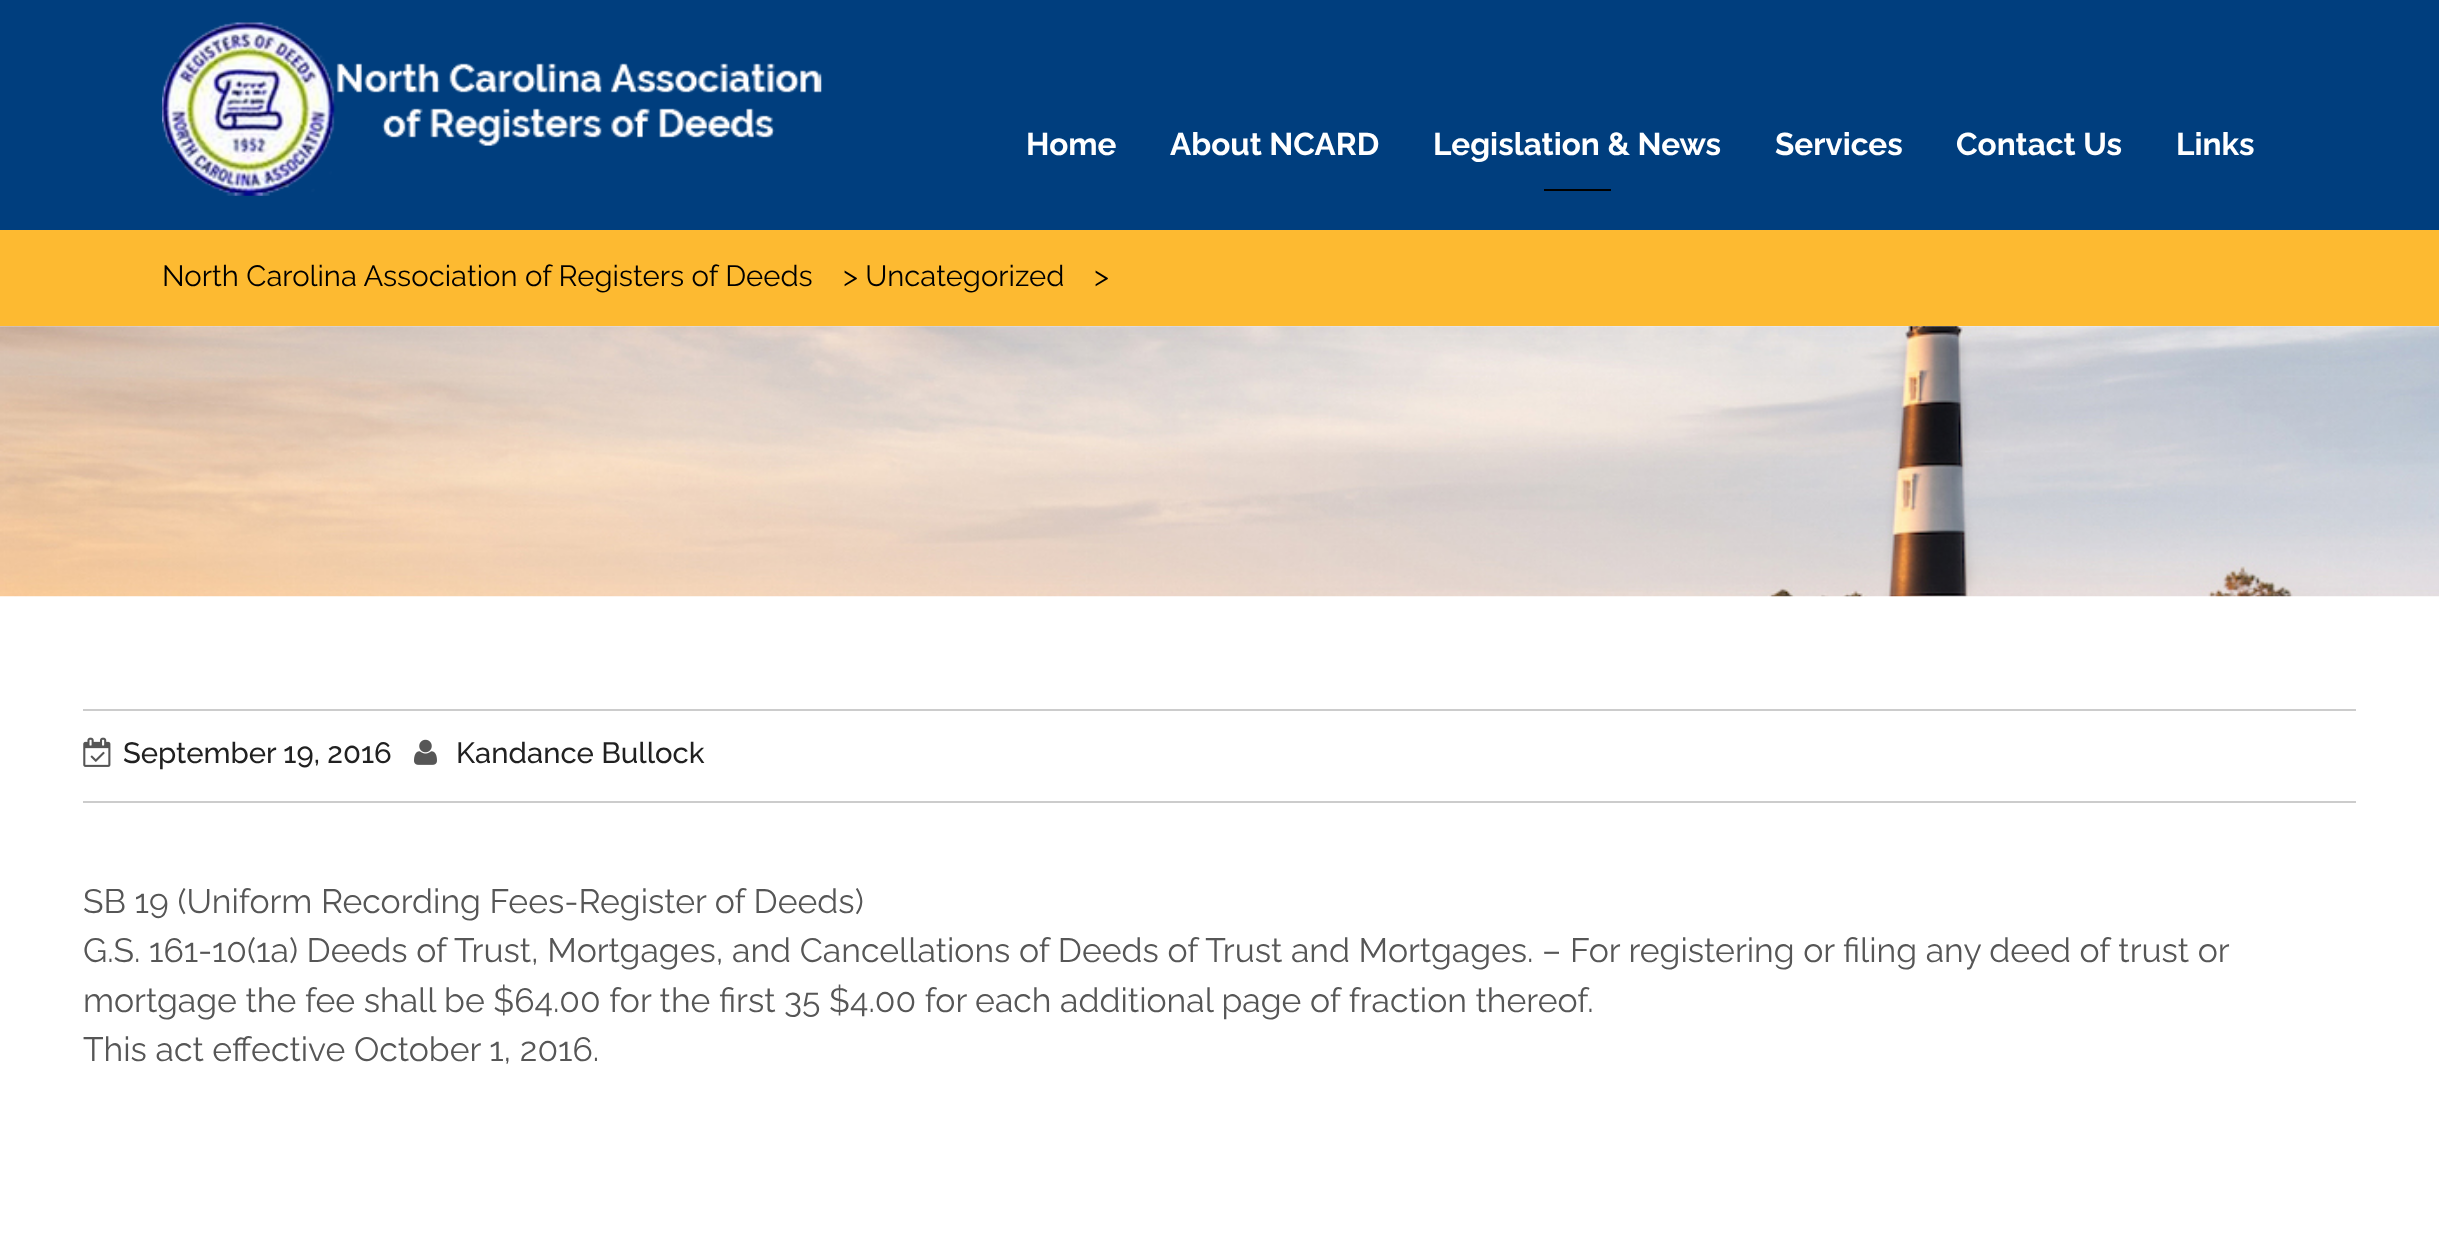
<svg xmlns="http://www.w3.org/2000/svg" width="2439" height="1260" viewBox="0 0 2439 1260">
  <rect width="100%" height="100%" fill="rgb(255,255,255)"/>
  <rect x="0" y="0" width="2439" height="230" fill="rgb(0,62,126)"/>
  <image x="162" y="22" width="660" height="174" href="pic1.png"/>
  <g font-family="Raleway" font-size="31.5" font-weight="bold" fill="rgb(255,255,255)">
    <text x="1026" y="155">Home</text>
    <text x="1170" y="155">About NCARD</text>
    <text x="1433" y="155">Legislation &amp; News</text>
  </g>
  <rect x="1544" y="189" width="67" height="2" fill="rgb(0,0,0)"/>
  <g font-family="Raleway" font-size="31.5" font-weight="bold" fill="rgb(255,255,255)">
    <text x="1775" y="155">Services</text>
    <text x="1956" y="155">Contact Us</text>
    <text x="2176" y="155">Links</text>
  </g>
  <rect x="0" y="230" width="2439" height="96" fill="rgb(253,186,49)"/>
  <g font-family="Raleway" font-size="29.25" font-weight="100" fill="rgb(0,0,0)">
    <text x="162" y="286">North Carolina Association of Registers of Deeds</text>
    <text x="843" y="286">&gt; Uncategorized</text>
    <text x="1094" y="286">&gt;</text>
  </g>
  <image x="0" y="326" width="2439" height="271" href="pic2.png"/>
  <rect x="83" y="709" width="2273" height="2" fill="rgb(204,204,204)"/>
  <rect x="83" y="801" width="2273" height="2" fill="rgb(204,204,204)"/>
  <image x="83" y="737" width="28" height="30" href="pic3.png"/>
  <text x="123" y="763" font-family="Raleway" font-size="29.25" font-weight="500" fill="rgb(33,33,33)">September 19, 2016</text>
  <image x="414" y="739" width="23" height="26" href="pic4.png"/>
  <text x="456" y="763" font-family="Raleway" font-size="29.25" font-weight="500" fill="rgb(33,33,33)">Kandance Bullock</text>
  <g font-family="Raleway" font-size="33.75" font-weight="100" fill="rgb(86,86,86)">
    <text>
      <tspan x="83" y="913">SB 19 (Uniform Recording Fees-Register of Deeds)</tspan>
      <tspan x="83" y="962">G.S. 161-10(1a) Deeds of Trust, Mortgages, and Cancellations of Deeds of Trust and Mortgages. – For registering or filing any deed of trust or</tspan>
      <tspan x="83" y="1012">mortgage the fee shall be $64.00 for the first 35 $4.00 for each additional page of fraction thereof.</tspan>
      <tspan x="83" y="1061">This act effective October 1, 2016.</tspan>
    </text>
  </g>
</svg>
